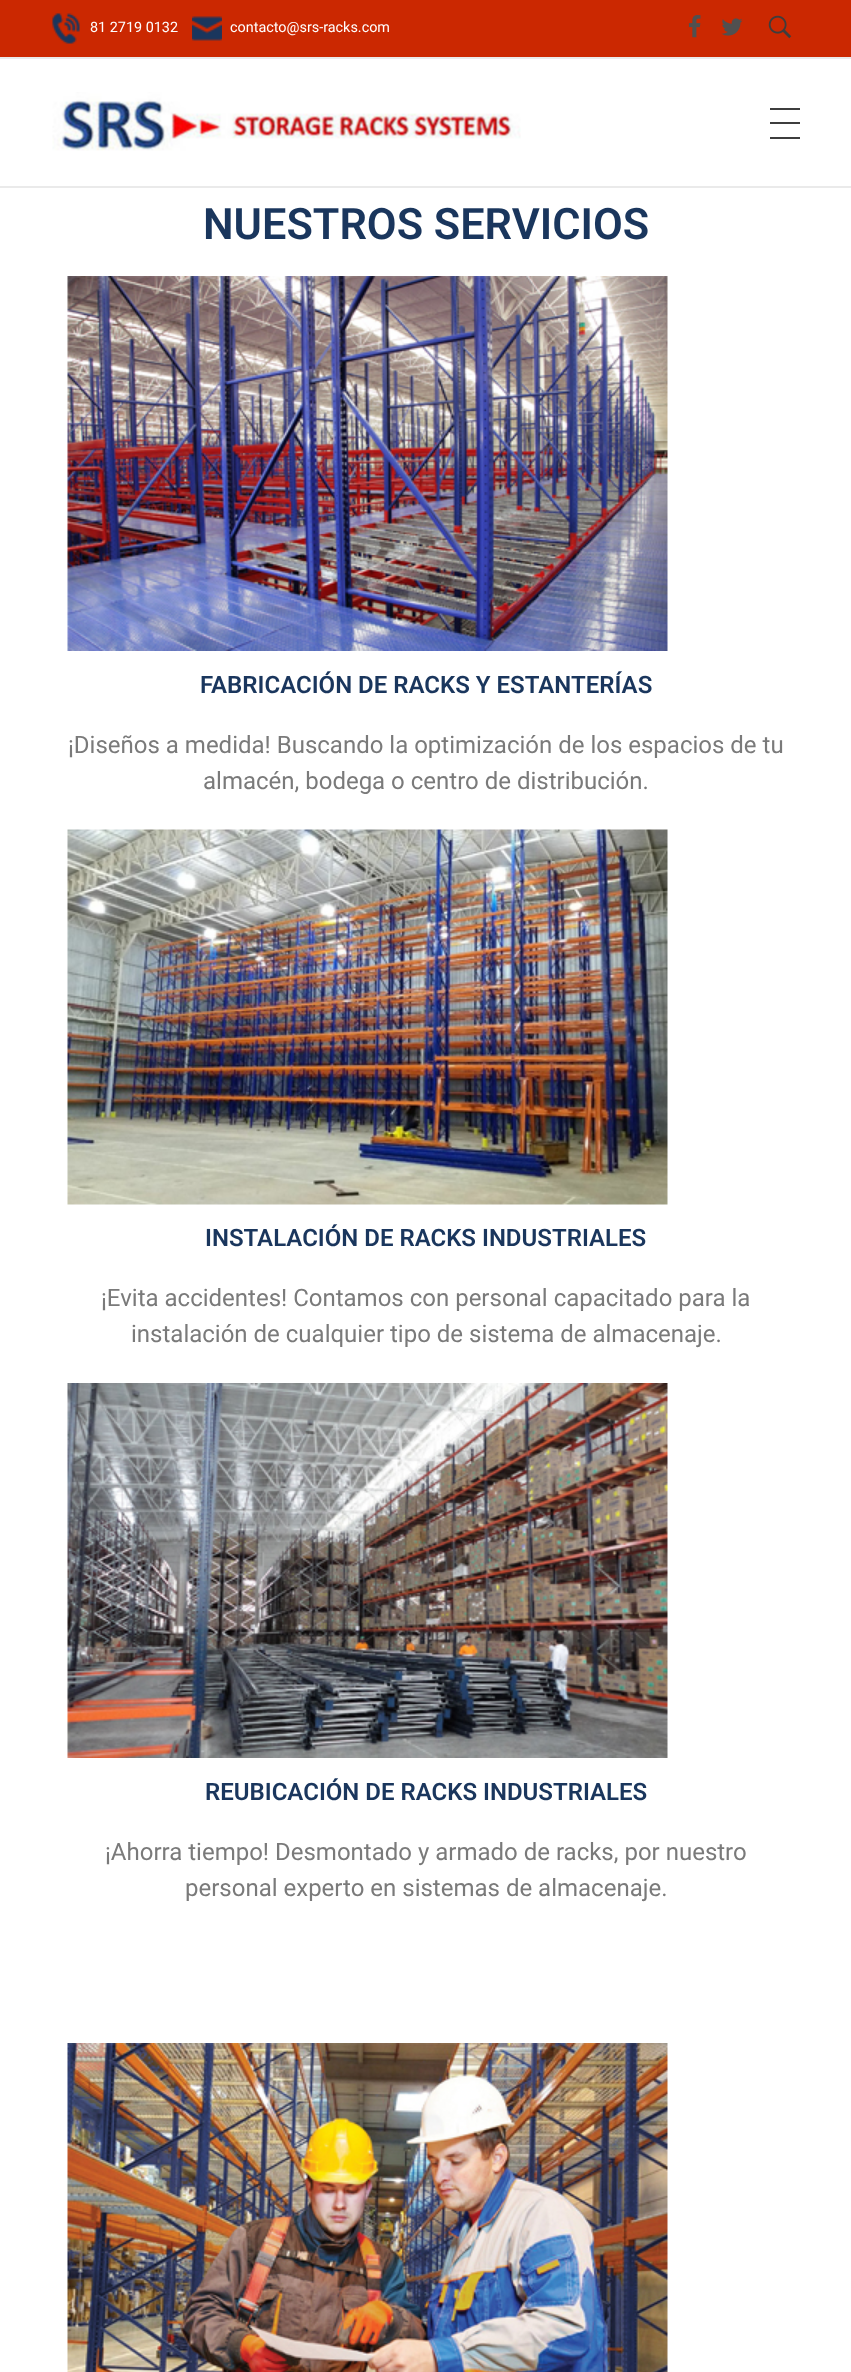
<svg xmlns="http://www.w3.org/2000/svg" width="851" height="2372" viewBox="0 0 851 2372">
  <rect width="100%" height="100%" fill="rgb(255,255,255)"/>
  <rect x="0" y="0" width="851" height="57" fill="rgb(203,40,1)"/>
  <rect x="0" y="57" width="851" height="2" fill="rgb(234,234,234)"/>
  <image x="52" y="13" width="28" height="31" href="pic1.png"/>
  <text x="90" y="32" font-family="Roboto" font-size="14.4" fill="rgb(255,255,255)">81 2719 0132</text>
  <image x="192" y="16" width="30" height="25" href="pic2.png"/>
  <text x="230" y="32" font-family="Roboto" font-size="14.4" fill="rgb(255,255,255)">contacto@srs-racks.com</text>
  <image x="688" y="15" width="13" height="23" href="pic3.png"/>
  <image x="721" y="18" width="22" height="18" href="pic4.png"/>
  <image x="768" y="15" width="24" height="24" href="pic5.png"/>
  <rect x="0" y="186" width="851" height="2" fill="rgb(234,234,234)"/>
  <image x="52" y="92" width="469" height="59" href="pic6.png"/>
  <rect x="770" y="108" width="30" height="2" fill="rgb(61,61,61)"/>
  <rect x="770" y="122" width="30" height="2" fill="rgb(61,61,61)"/>
  <rect x="770" y="137" width="30" height="2" fill="rgb(61,61,61)"/>
  <text x="203" y="239" font-family="Roboto" font-size="43.25" font-weight="600" fill="rgb(26,54,93)">NUESTROS SERVICIOS</text>
  <image x="67" y="276" width="601" height="375" href="pic7.png"/>
  <text x="200" y="693" font-family="Roboto" font-size="24" font-weight="600" fill="rgb(26,54,93)">FABRICACIÓN DE RACKS Y ESTANTERÍAS</text>
  <g font-family="Roboto" font-size="24" fill="rgb(122,122,122)">
    <text x="68" y="753">¡Diseños a medida! Buscando la optimización de los espacios de tu</text>
    <text x="203" y="789">almacén, bodega o centro de distribución.</text>
  </g>
  <image x="67" y="829" width="601" height="376" href="pic8.png"/>
  <text x="205" y="1246" font-family="Roboto" font-size="24" font-weight="600" fill="rgb(26,54,93)">INSTALACIÓN DE RACKS INDUSTRIALES</text>
  <g font-family="Roboto" font-size="24" fill="rgb(122,122,122)">
    <text x="101" y="1306">¡Evita accidentes! Contamos con personal capacitado para la</text>
    <text x="131" y="1342">instalación de cualquier tipo de sistema de almacenaje.</text>
  </g>
  <image x="67" y="1383" width="601" height="375" href="pic9.png"/>
  <text x="205" y="1800" font-family="Roboto" font-size="24" font-weight="600" fill="rgb(26,54,93)">REUBICACIÓN DE RACKS INDUSTRIALES</text>
  <g font-family="Roboto" font-size="24" fill="rgb(122,122,122)">
    <text x="105" y="1860">¡Ahorra tiempo! Desmontado y armado de racks, por nuestro</text>
    <text x="185" y="1896">personal experto en sistemas de almacenaje.</text>
  </g>
  <image x="67" y="2043" width="601" height="329" href="pic10.png"/>
</svg>
